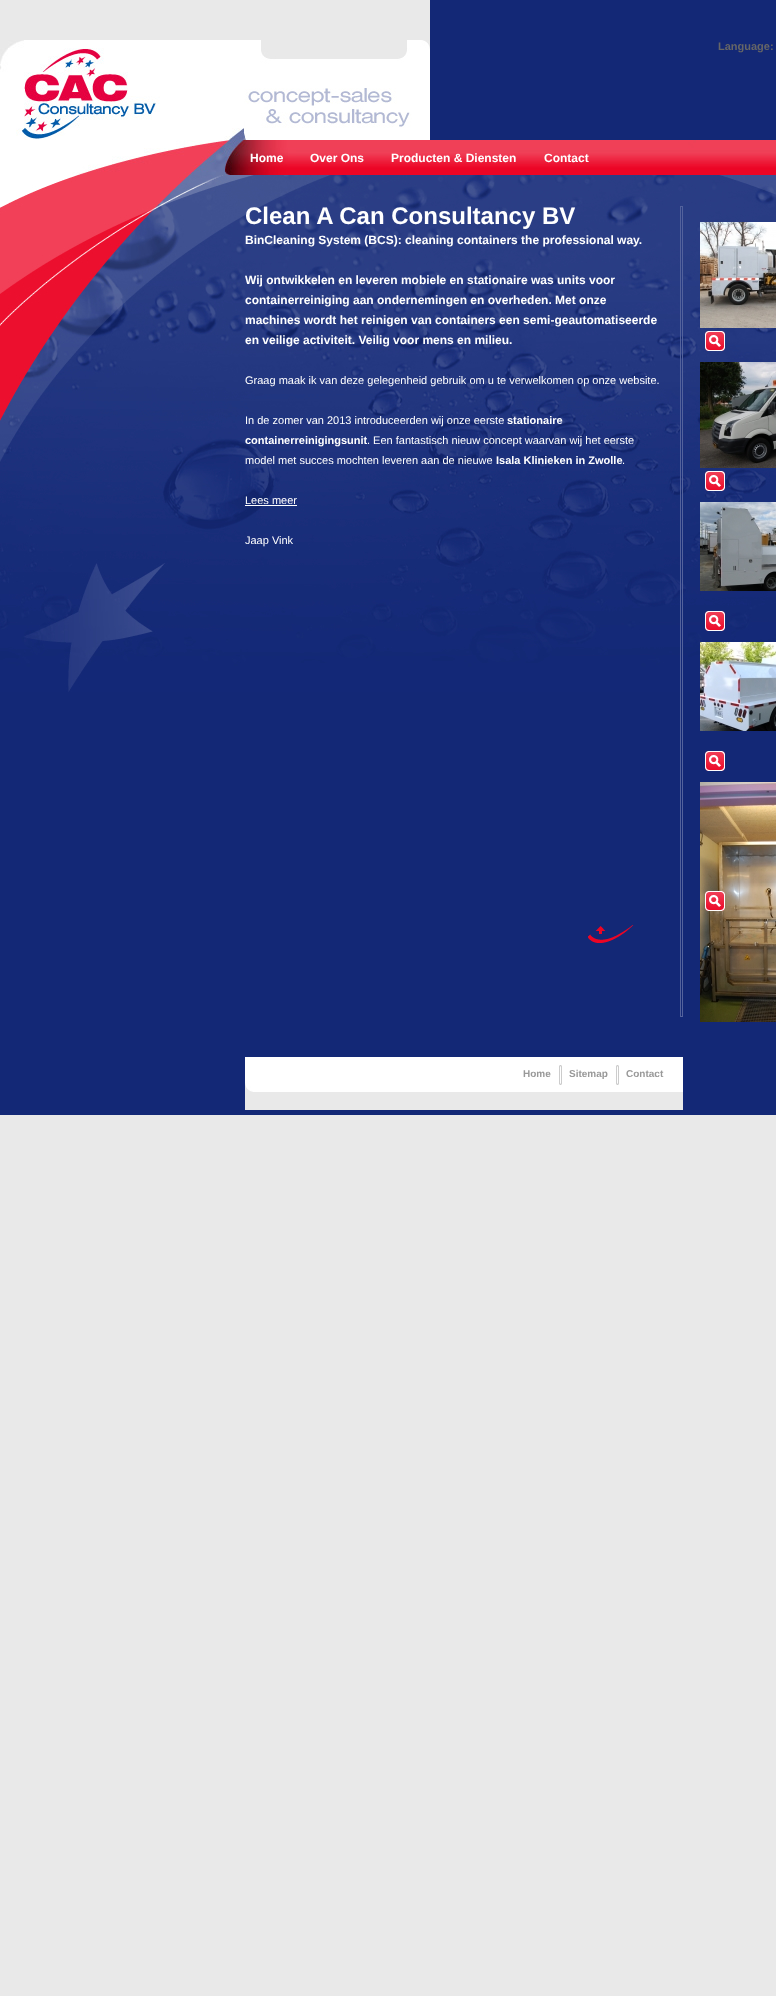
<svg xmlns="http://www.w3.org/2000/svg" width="776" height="1996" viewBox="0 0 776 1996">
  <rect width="100%" height="100%" fill="rgb(233,233,233)"/>
  <rect x="0" y="0" width="776" height="1115" fill="rgb(19,40,118)"/>
  <image x="0" y="175" width="776" height="517" href="pic1.png"/>
  <image x="0" y="0" width="244" height="140" href="pic2.png"/>
  <image x="244" y="0" width="186" height="140" href="pic3.png"/>
  <text x="718" y="50" font-family="Liberation Sans" font-size="11" font-weight="bold" fill="rgb(102,102,102)">Language:</text>
  <image x="0" y="140" width="776" height="35" href="pic4.png"/>
  <g font-family="Liberation Sans" font-size="12" font-weight="bold" fill="rgb(255,255,255)">
    <text x="250" y="162">Home</text>
    <text x="310" y="162">Over Ons</text>
    <text x="391" y="162">Producten &amp; Diensten</text>
    <text x="544" y="162">Contact</text>
  </g>
  <text x="245" y="224" font-family="Liberation Sans" font-size="24" font-weight="bold" fill="rgb(255,255,255)">Clean A Can Consultancy BV</text>
  <rect x="680.5" y="206.5" width="2" height="810" fill="none" stroke="rgb(83,98,156)"/>
  <g font-family="Liberation Sans" font-size="12" font-weight="bold" fill="rgb(255,255,255)">
    <text x="245" y="244">BinCleaning System (BCS): cleaning containers the professional way.</text>
    <text>
      <tspan x="245" y="284">Wij ontwikkelen en leveren mobiele en stationaire was units voor</tspan>
      <tspan x="245" y="304">containerreiniging aan ondernemingen en overheden. Met onze</tspan>
      <tspan x="245" y="324">machines wordt het reinigen van containers een semi-geautomatiseerde</tspan>
      <tspan x="245" y="344">en veilige activiteit. Veilig voor mens en milieu.</tspan>
    </text>
  </g>
  <g font-family="Liberation Sans" font-size="11" fill="rgb(255,255,255)">
    <text x="245" y="384">Graag maak ik van deze gelegenheid gebruik om u te verwelkomen op onze website.</text>
    <text x="245" y="424">In de zomer van 2013 introduceerden wij onze eerste</text>
  </g>
  <g font-family="Liberation Sans" font-size="11" font-weight="bold" fill="rgb(255,255,255)">
    <text x="507" y="424">stationaire</text>
    <text x="245" y="444">containerreinigingsunit</text>
  </g>
  <g font-family="Liberation Sans" font-size="11" fill="rgb(255,255,255)">
    <text x="367" y="444">. Een fantastisch nieuw concept waarvan wij het eerste</text>
    <text x="245" y="464">model met succes mochten leveren aan de nieuwe</text>
  </g>
  <text x="496" y="464" font-family="Liberation Sans" font-size="11" font-weight="bold" fill="rgb(255,255,255)">Isala Klinieken in Zwolle</text>
  <g font-family="Liberation Sans" font-size="11" fill="rgb(255,255,255)">
    <text x="622" y="464">.</text>
    <text x="245" y="504">Lees meer</text>
  </g>
  <rect x="245" y="505" width="52" height="1" fill="rgb(255,255,255)"/>
  <text x="245" y="544" font-family="Liberation Sans" font-size="11" fill="rgb(255,255,255)">Jaap Vink</text>
  <image x="588" y="925" width="46" height="18" href="pic5.png"/>
  <rect x="245" y="1092" width="438" height="18" fill="rgb(233,233,233)"/>
  <image x="245" y="1057" width="438" height="35" href="pic6.png"/>
  <text x="523" y="1077" font-family="Liberation Sans" font-size="10" font-weight="bold" fill="rgb(153,153,153)">Home</text>
  <image x="559" y="1065" width="3" height="20" href="pic7.png"/>
  <text x="569" y="1077" font-family="Liberation Sans" font-size="10" font-weight="bold" fill="rgb(153,153,153)">Sitemap</text>
  <image x="616" y="1065" width="3" height="20" href="pic7.png"/>
  <text x="626" y="1077" font-family="Liberation Sans" font-size="10" font-weight="bold" fill="rgb(153,153,153)">Contact</text>
  <image x="700" y="222" width="76" height="106" href="pic8.png"/>
  <image x="705" y="331" width="20" height="20" href="pic9.png"/>
  <image x="700" y="362" width="76" height="106" href="pic10.png"/>
  <image x="705" y="471" width="20" height="20" href="pic11.png"/>
  <image x="700" y="502" width="76" height="89" href="pic12.png"/>
  <image x="705" y="611" width="20" height="20" href="pic13.png"/>
  <image x="700" y="642" width="76" height="89" href="pic14.png"/>
  <image x="705" y="751" width="20" height="20" href="pic15.png"/>
  <image x="700" y="782" width="76" height="240" href="pic16.png"/>
  <image x="705" y="891" width="20" height="20" href="pic17.png"/>
</svg>
